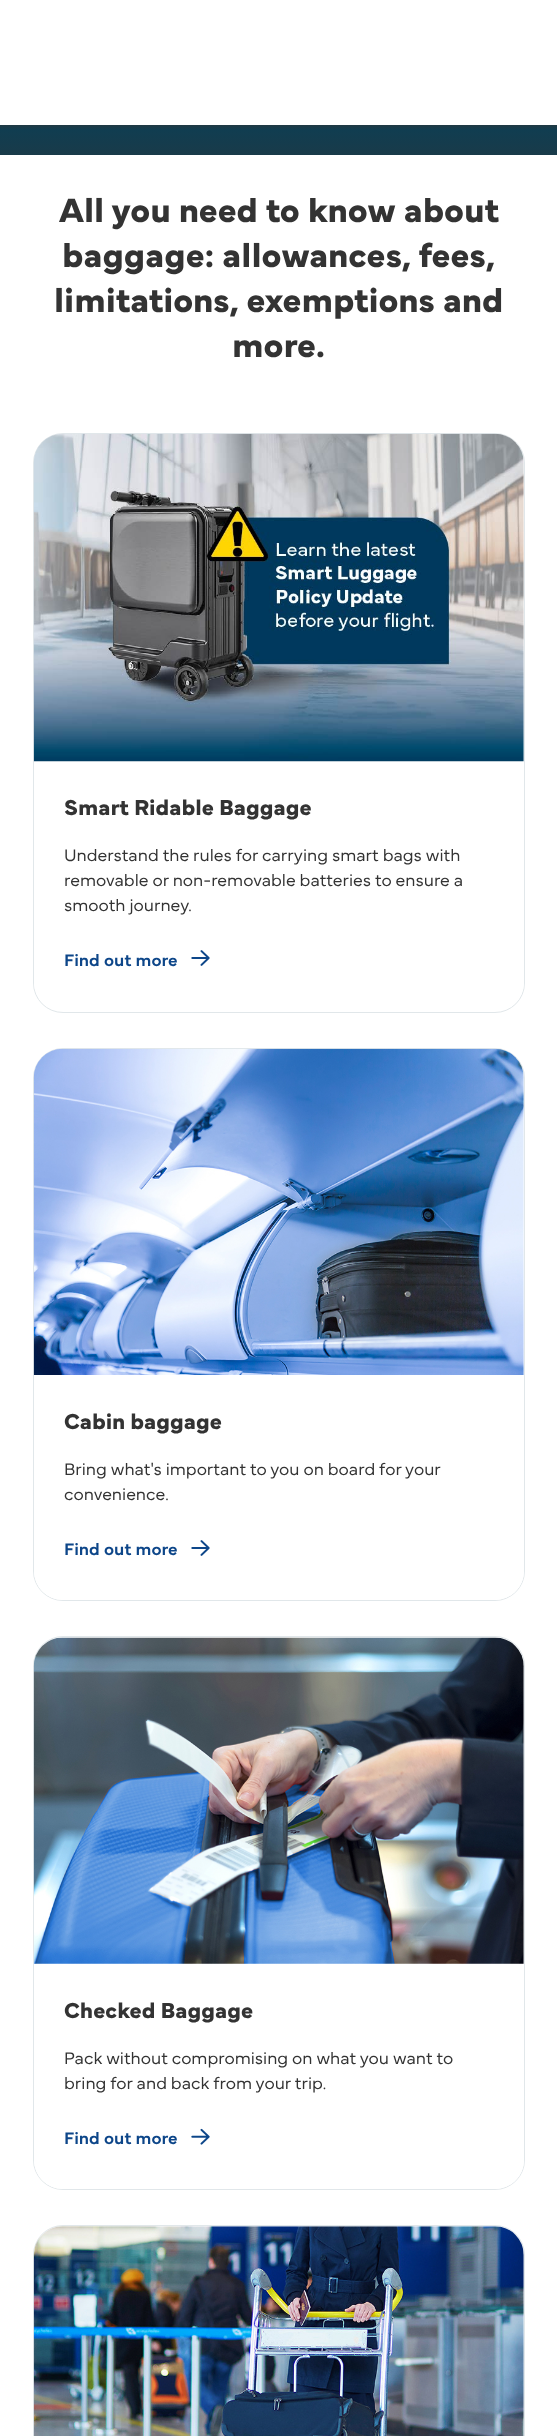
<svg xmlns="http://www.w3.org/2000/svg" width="557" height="2436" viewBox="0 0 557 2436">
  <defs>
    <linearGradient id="g1" gradientUnits="userSpaceOnUse" x1="279" y1="125" x2="279" y2="130"><stop offset="0" stop-color="rgb(25,59,73)"/><stop offset="1" stop-color="rgb(0,66,95)"/></linearGradient>
    <linearGradient id="g2" gradientUnits="userSpaceOnUse" x1="279" y1="80" x2="279" y2="155"><stop offset="0" stop-color="rgb(51,51,51)" stop-opacity="0"/><stop offset="1" stop-color="rgb(51,51,51)" stop-opacity="0.49"/></linearGradient>
  </defs>
  <rect width="100%" height="100%" fill="rgb(255,255,255)"/>
  <rect x="0" y="130" width="557" height="25" fill="rgb(0,66,95)"/>
  <rect x="0" y="125" width="557" height="5" fill="url(#g1)"/>
  <rect x="0" y="125" width="557" height="30" fill="url(#g2)"/>
  <g font-family="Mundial" font-size="35" font-weight="bold" fill="rgb(51,51,51)">
    <text x="59" y="222">All you need to know about</text>
    <text x="62" y="267">baggage: allowances, fees,</text>
    <text x="54" y="312">limitations, exemptions and</text>
    <text x="232" y="357">more.</text>
  </g>
  <rect x="33.5" y="433.5" width="491" height="579" rx="29.5" fill="none" stroke="rgb(225,231,234)"/>
  <path d="M34 761H524V982C524 998 511 1011 495 1011H63C47 1011 34 998 34 982Z" fill="rgb(255,255,255)"/>
  <image x="33" y="433" width="491" height="329" href="pic1.png"/>
  <text x="64" y="815" font-family="Mundial" font-size="22.5" font-weight="bold" fill="rgb(51,51,51)">Smart Ridable Baggage</text>
  <g font-family="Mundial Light" font-size="17.5" font-weight="300" fill="rgb(51,51,51)">
    <text>
      <tspan x="64" y="861">Understand the rules for carrying smart bags with</tspan>
      <tspan x="64" y="886">removable or non-removable batteries to ensure a</tspan>
      <tspan x="64" y="911">smooth journey.</tspan>
    </text>
  </g>
  <text x="64" y="966" font-family="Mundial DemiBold" font-size="17.5" font-weight="600" fill="rgb(13,70,137)">Find out more</text>
  <image x="191" y="950" width="19" height="16" href="pic2.png"/>
  <rect x="33.5" y="1048.5" width="491" height="552" rx="29.5" fill="none" stroke="rgb(225,231,234)"/>
  <image x="33" y="1048" width="491" height="327" href="pic3.png"/>
  <path d="M34 1375H524V1571C524 1587 511 1600 495 1600H63C47 1600 34 1587 34 1571Z" fill="rgb(255,255,255)"/>
  <text x="64" y="1429" font-family="Mundial" font-size="22.5" font-weight="bold" fill="rgb(51,51,51)">Cabin baggage</text>
  <g font-family="Mundial Light" font-size="17.5" font-weight="300" fill="rgb(51,51,51)">
    <text>
      <tspan x="64" y="1475">Bring what's important to you on board for your</tspan>
      <tspan x="64" y="1500">convenience.</tspan>
    </text>
  </g>
  <text x="64" y="1555" font-family="Mundial DemiBold" font-size="17.5" font-weight="600" fill="rgb(13,70,137)">Find out more</text>
  <image x="191" y="1540" width="19" height="16" href="pic2.png"/>
  <rect x="33.5" y="1636.5" width="491" height="553" rx="29.5" fill="none" stroke="rgb(225,231,234)"/>
  <image x="33" y="1637" width="491" height="327" href="pic4.png"/>
  <path d="M34 1964H524V2160C524 2176 511 2189 495 2189H63C47 2189 34 2176 34 2160Z" fill="rgb(255,255,255)"/>
  <text x="64" y="2018" font-family="Mundial" font-size="22.5" font-weight="bold" fill="rgb(51,51,51)">Checked Baggage</text>
  <g font-family="Mundial Light" font-size="17.5" font-weight="300" fill="rgb(51,51,51)">
    <text>
      <tspan x="64" y="2064">Pack without compromising on what you want to</tspan>
      <tspan x="64" y="2089">bring for and back from your trip.</tspan>
    </text>
  </g>
  <text x="64" y="2144" font-family="Mundial DemiBold" font-size="17.5" font-weight="600" fill="rgb(13,70,137)">Find out more</text>
  <image x="191" y="2128" width="19" height="17" href="pic5.png"/>
  <rect x="33.5" y="2225.5" width="491" height="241" rx="29.5" fill="none" stroke="rgb(225,231,234)"/>
  <image x="33" y="2226" width="491" height="210" href="pic6.png"/>
</svg>
